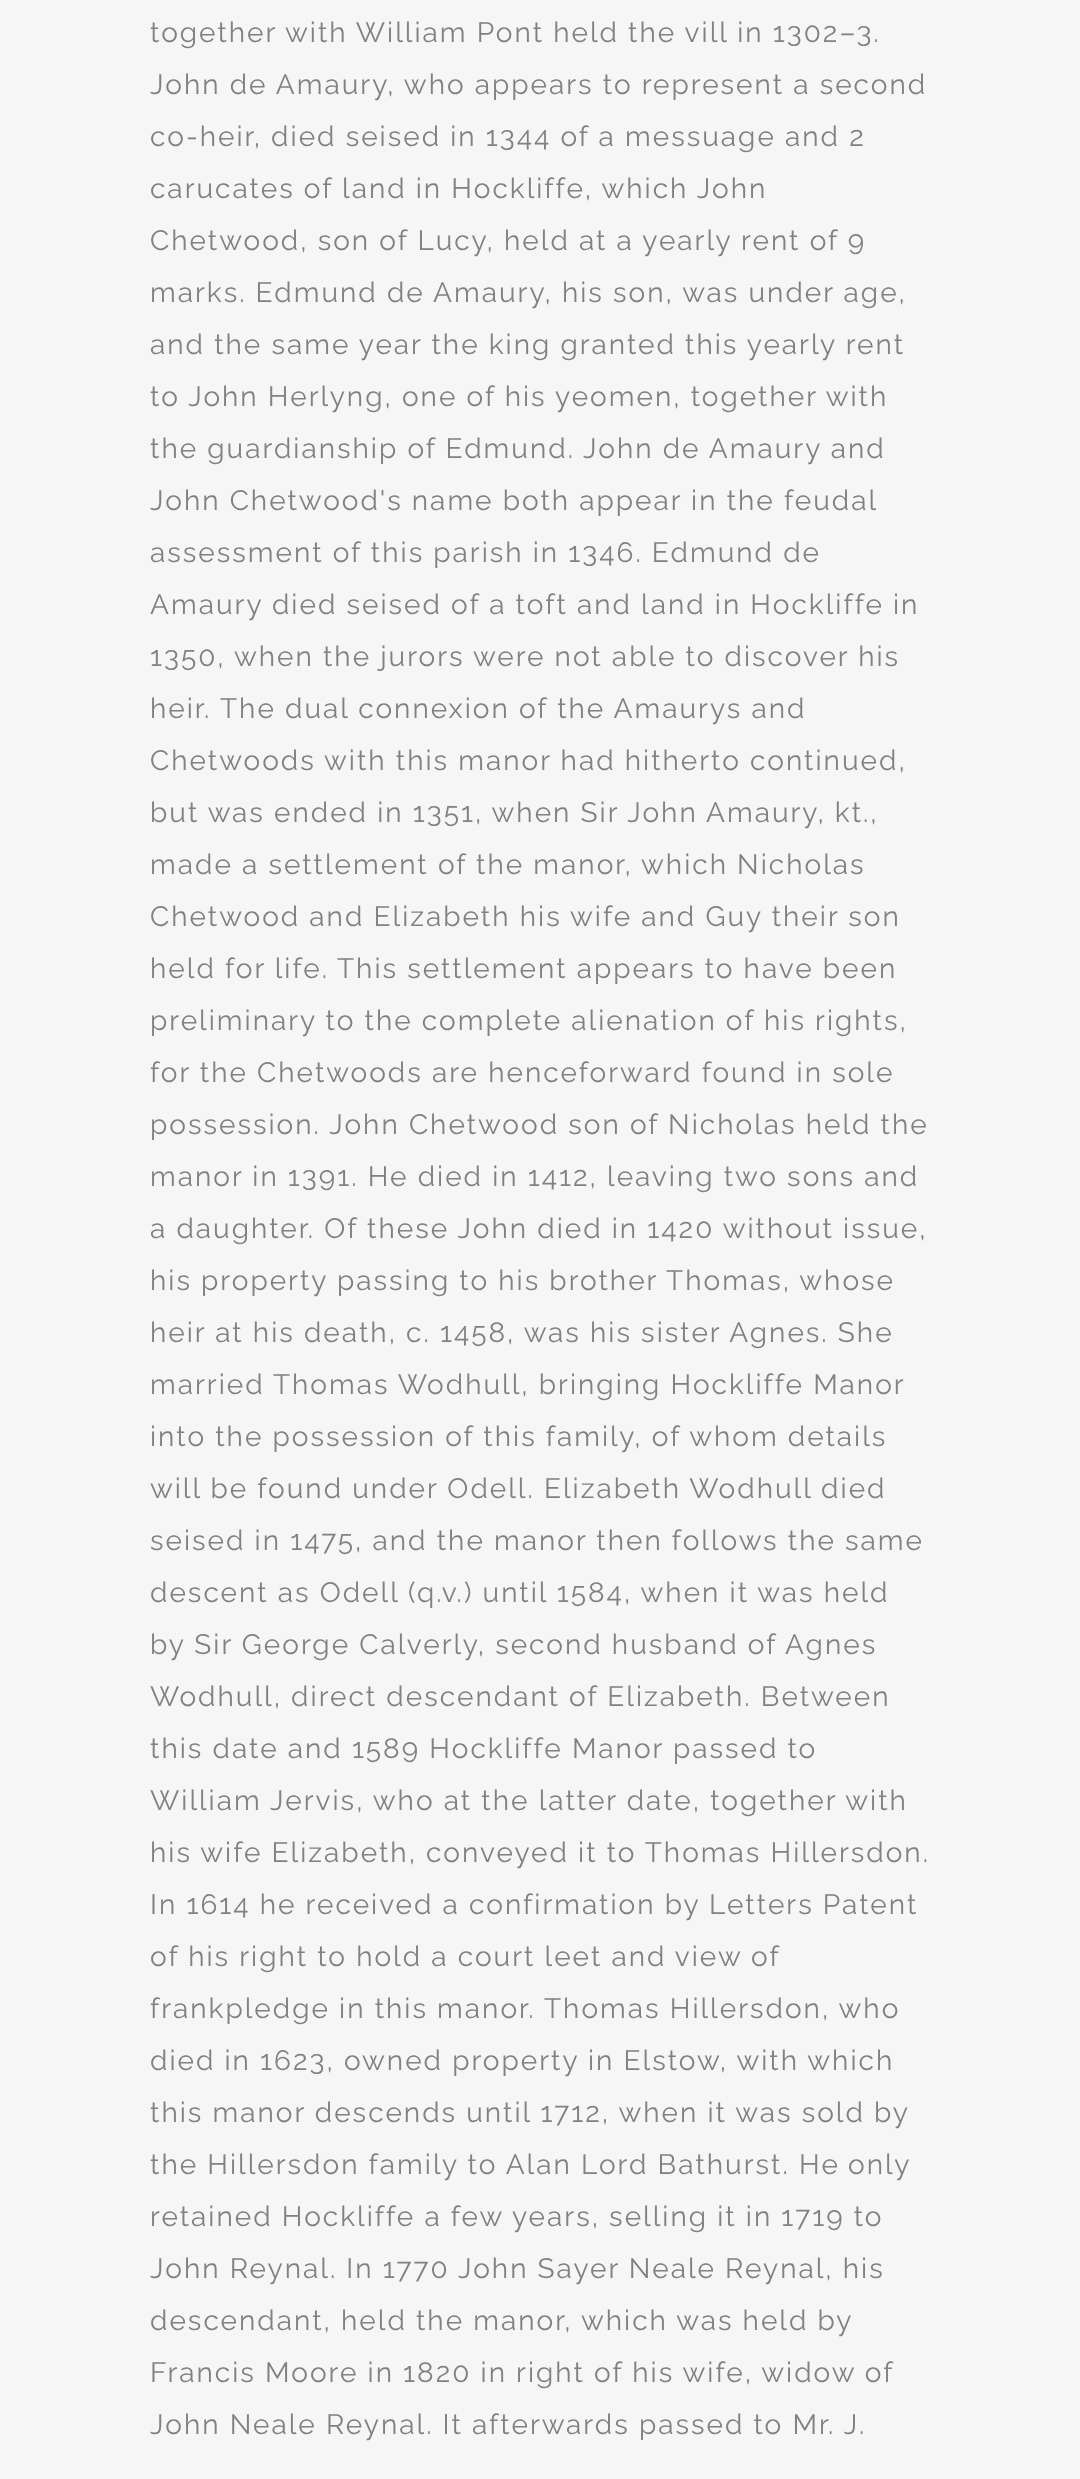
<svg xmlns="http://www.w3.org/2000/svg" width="1080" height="2479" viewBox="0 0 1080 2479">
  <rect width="100%" height="100%" fill="rgb(246,246,246)"/>
  <g font-family="Raleway" font-size="28" letter-spacing="2" fill="rgb(129,129,129)">
    <text>
      <tspan x="150" y="42">together with William Pont held the vill in 1302–3.</tspan>
      <tspan x="150" y="94">John de Amaury, who appears to represent a second</tspan>
      <tspan x="150" y="146">co-heir, died seised in 1344 of a messuage and 2</tspan>
      <tspan x="150" y="198">carucates of land in Hockliffe, which John</tspan>
      <tspan x="150" y="250">Chetwood, son of Lucy, held at a yearly rent of 9</tspan>
      <tspan x="150" y="302">marks. Edmund de Amaury, his son, was under age,</tspan>
      <tspan x="150" y="354">and the same year the king granted this yearly rent</tspan>
      <tspan x="150" y="406">to John Herlyng, one of his yeomen, together with</tspan>
      <tspan x="150" y="458">the guardianship of Edmund.</tspan>
    </text>
    <text x="583" y="458">John de Amaury and</text>
    <text>
      <tspan x="150" y="510">John Chetwood's name both appear in the feudal</tspan>
      <tspan x="150" y="562">assessment of this parish in 1346. Edmund de</tspan>
      <tspan x="150" y="614">Amaury died seised of a toft and land in Hockliffe in</tspan>
      <tspan x="150" y="666">1350, when the jurors were not able to discover his</tspan>
      <tspan x="150" y="718">heir.</tspan>
    </text>
    <text x="220" y="718">The dual connexion of the Amaurys and</text>
    <text>
      <tspan x="150" y="770">Chetwoods with this manor had hitherto continued,</tspan>
      <tspan x="150" y="822">but was ended in 1351, when Sir John Amaury, kt.,</tspan>
      <tspan x="150" y="874">made a settlement of the manor, which Nicholas</tspan>
      <tspan x="150" y="926">Chetwood and Elizabeth his wife and Guy their son</tspan>
      <tspan x="150" y="978">held for life.</tspan>
    </text>
    <text x="337" y="978">This settlement appears to have been</text>
    <text>
      <tspan x="150" y="1030">preliminary to the complete alienation of his rights,</tspan>
      <tspan x="150" y="1082">for the Chetwoods are henceforward found in sole</tspan>
      <tspan x="150" y="1134">possession. John Chetwood son of Nicholas held the</tspan>
      <tspan x="150" y="1186">manor in 1391. He died in 1412, leaving two sons and</tspan>
      <tspan x="150" y="1238">a daughter. Of these John died in 1420 without issue,</tspan>
      <tspan x="150" y="1290">his property passing to his brother Thomas, whose</tspan>
      <tspan x="150" y="1342">heir at his death, c. 1458, was his sister Agnes. She</tspan>
      <tspan x="150" y="1394">married Thomas Wodhull, bringing Hockliffe Manor</tspan>
      <tspan x="150" y="1446">into the possession of this family, of whom details</tspan>
      <tspan x="150" y="1498">will be found under Odell. Elizabeth Wodhull died</tspan>
      <tspan x="150" y="1550">seised in 1475, and the manor then follows the same</tspan>
      <tspan x="150" y="1602">descent as Odell (q.v.) until 1584, when it was held</tspan>
      <tspan x="150" y="1654">by Sir George Calverly, second husband of Agnes</tspan>
      <tspan x="150" y="1706">Wodhull, direct descendant of Elizabeth. Between</tspan>
      <tspan x="150" y="1758">this date and 1589 Hockliffe Manor passed to</tspan>
      <tspan x="150" y="1810">William Jervis, who at the latter date, together with</tspan>
      <tspan x="150" y="1862">his wife Elizabeth, conveyed it to Thomas Hillersdon.</tspan>
      <tspan x="150" y="1914">In 1614 he received a confirmation by Letters Patent</tspan>
      <tspan x="150" y="1966">of his right to hold a court leet and view of</tspan>
      <tspan x="150" y="2018">frankpledge in this manor.</tspan>
    </text>
    <text x="544" y="2018">Thomas Hillersdon, who</text>
    <text>
      <tspan x="150" y="2070">died in 1623, owned property in Elstow, with which</tspan>
      <tspan x="150" y="2122">this manor descends until 1712, when it was sold by</tspan>
      <tspan x="150" y="2174">the Hillersdon family to Alan Lord Bathurst.</tspan>
    </text>
    <text x="799" y="2174" word-spacing="-1">He only</text>
    <text>
      <tspan x="150" y="2226">retained Hockliffe a few years, selling it in 1719 to</tspan>
      <tspan x="150" y="2278">John Reynal. In 1770 John Sayer Neale Reynal, his</tspan>
      <tspan x="150" y="2330">descendant, held the manor, which was held by</tspan>
      <tspan x="150" y="2382">Francis Moore in 1820 in right of his wife, widow of</tspan>
      <tspan x="150" y="2434">John Neale Reynal. It afterwards passed to Mr. J.</tspan>
    </text>
  </g>
</svg>
